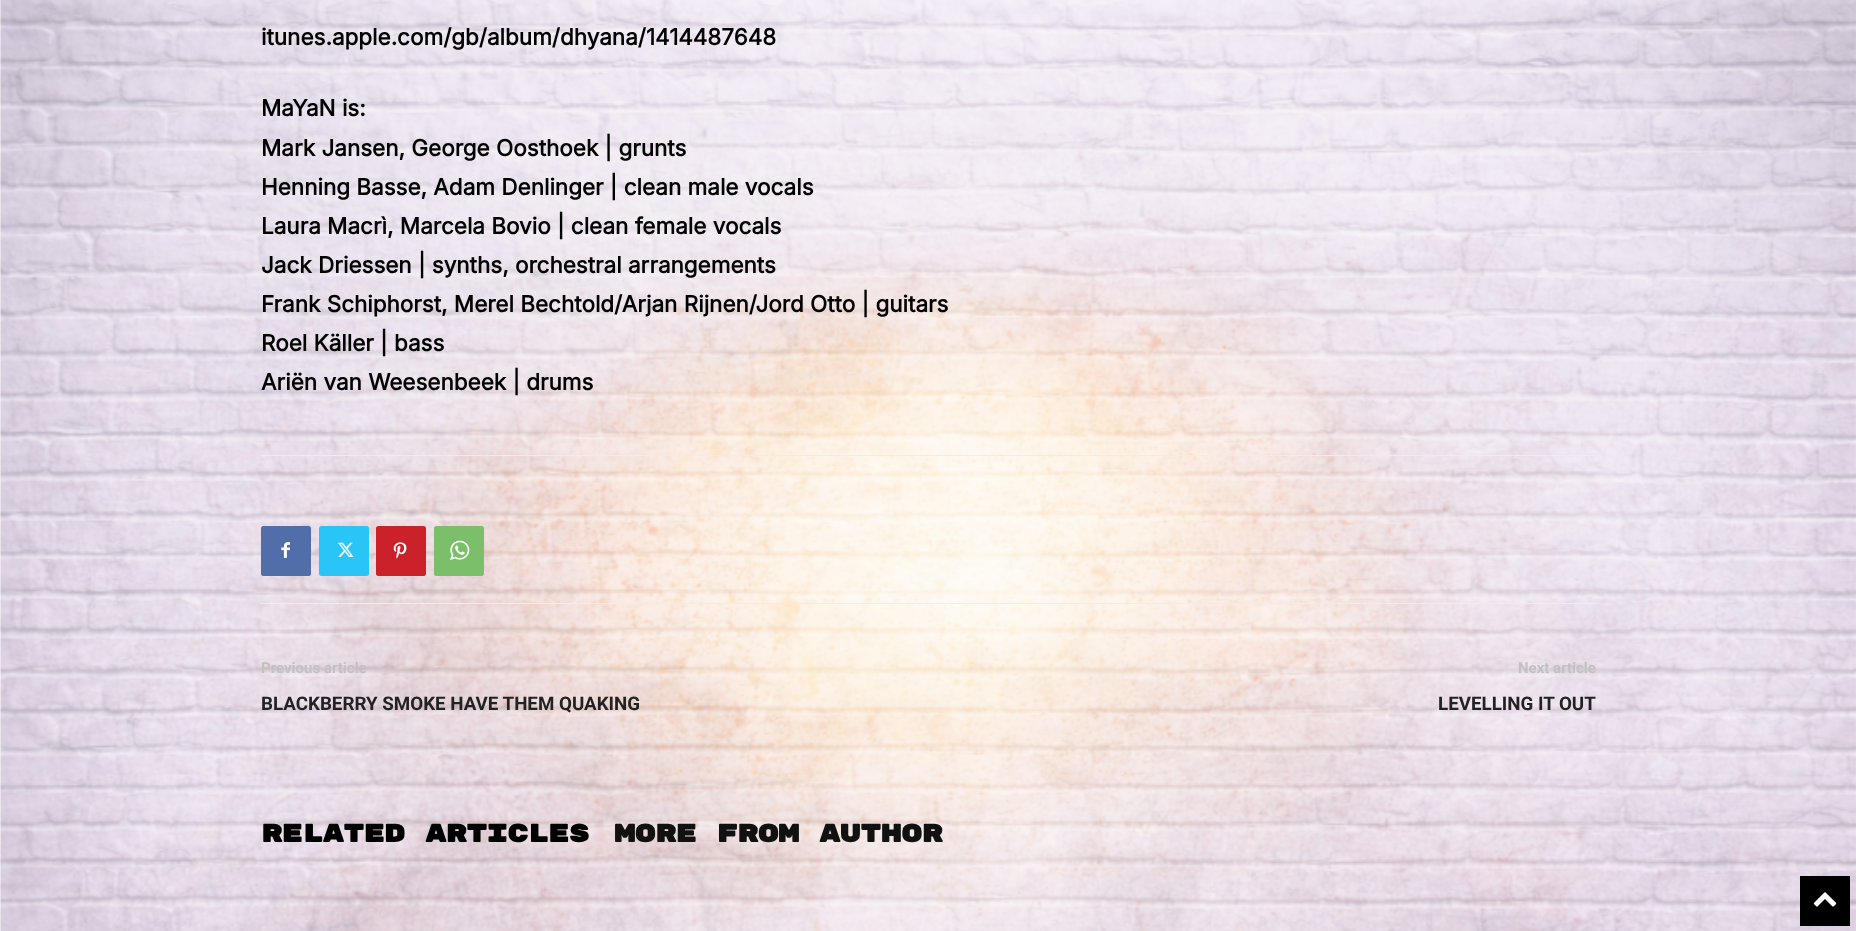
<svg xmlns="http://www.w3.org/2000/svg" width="1856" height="931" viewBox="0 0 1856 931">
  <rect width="100%" height="100%" fill="rgb(255,255,255)"/>
  <image x="0" y="0" width="1856" height="931" href="pic1.png"/>
  <g font-family="Inter" font-size="22.5" font-weight="bold" fill="rgb(0,0,0)">
    <text x="261" y="45">itunes.apple.com/gb/album/dhyana/1414487648</text>
    <text>
      <tspan x="261" y="116">MaYaN is:</tspan>
      <tspan x="261" y="156">Mark Jansen, George Oosthoek | grunts</tspan>
      <tspan x="261" y="195">Henning Basse, Adam Denlinger | clean male vocals</tspan>
      <tspan x="261" y="234">Laura Macrì, Marcela Bovio | clean female vocals</tspan>
      <tspan x="261" y="273">Jack Driessen | synths, orchestral arrangements</tspan>
      <tspan x="261" y="312">Frank Schiphorst, Merel Bechtold/Arjan Rijnen/Jord Otto | guitars</tspan>
      <tspan x="261" y="351">Roel Käller | bass</tspan>
      <tspan x="261" y="390">Ariën van Weesenbeek | drums</tspan>
    </text>
  </g>
  <rect x="261" y="455" width="1335" height="1" fill="rgb(237,237,237)"/>
  <rect x="261" y="603" width="1335" height="1" fill="rgb(237,237,237)"/>
  <rect x="261" y="526" width="50" height="50" rx="2.5" fill="rgb(81,110,171)"/>
  <image x="281" y="542" width="9" height="16" href="pic2.png"/>
  <rect x="319" y="526" width="50" height="50" rx="2.5" fill="rgb(41,197,246)"/>
  <image x="338" y="542" width="16" height="15" href="pic3.png"/>
  <rect x="376" y="526" width="50" height="50" rx="2.5" fill="rgb(202,33,42)"/>
  <image x="393" y="542" width="14" height="17" href="pic4.png"/>
  <rect x="434" y="526" width="50" height="50" rx="2.5" fill="rgb(123,191,106)"/>
  <image x="450" y="540" width="20" height="20" href="pic5.png"/>
  <text x="261" y="673" font-family="Roboto" font-size="15" font-weight="bold" fill="rgb(193,193,193)">Previous article</text>
  <text x="261" y="710" font-family="Roboto" font-size="18.75" font-weight="bold" fill="rgb(34,34,34)">BLACKBERRY SMOKE HAVE THEM QUAKING</text>
  <text x="1518" y="673" font-family="Roboto" font-size="15" font-weight="bold" fill="rgb(193,193,193)">Next article</text>
  <text x="1438" y="710" font-family="Roboto" font-size="18.75" font-weight="bold" fill="rgb(34,34,34)">LEVELLING IT OUT</text>
  <text x="261" y="842" font-family="Rubik Mono One" font-size="25" font-weight="bold" letter-spacing="-0.75" fill="rgb(0,0,0)">RELATED ARTICLES</text>
  <text x="614" y="842" font-family="Rubik Mono One" font-size="25" font-weight="bold" letter-spacing="-0.75" fill="rgb(17,17,17)">MORE FROM AUTHOR</text>
  <rect x="1800" y="876" width="50" height="50" fill="rgb(0,0,0)"/>
  <image x="1813" y="892" width="24" height="15" href="pic6.png"/>
</svg>
